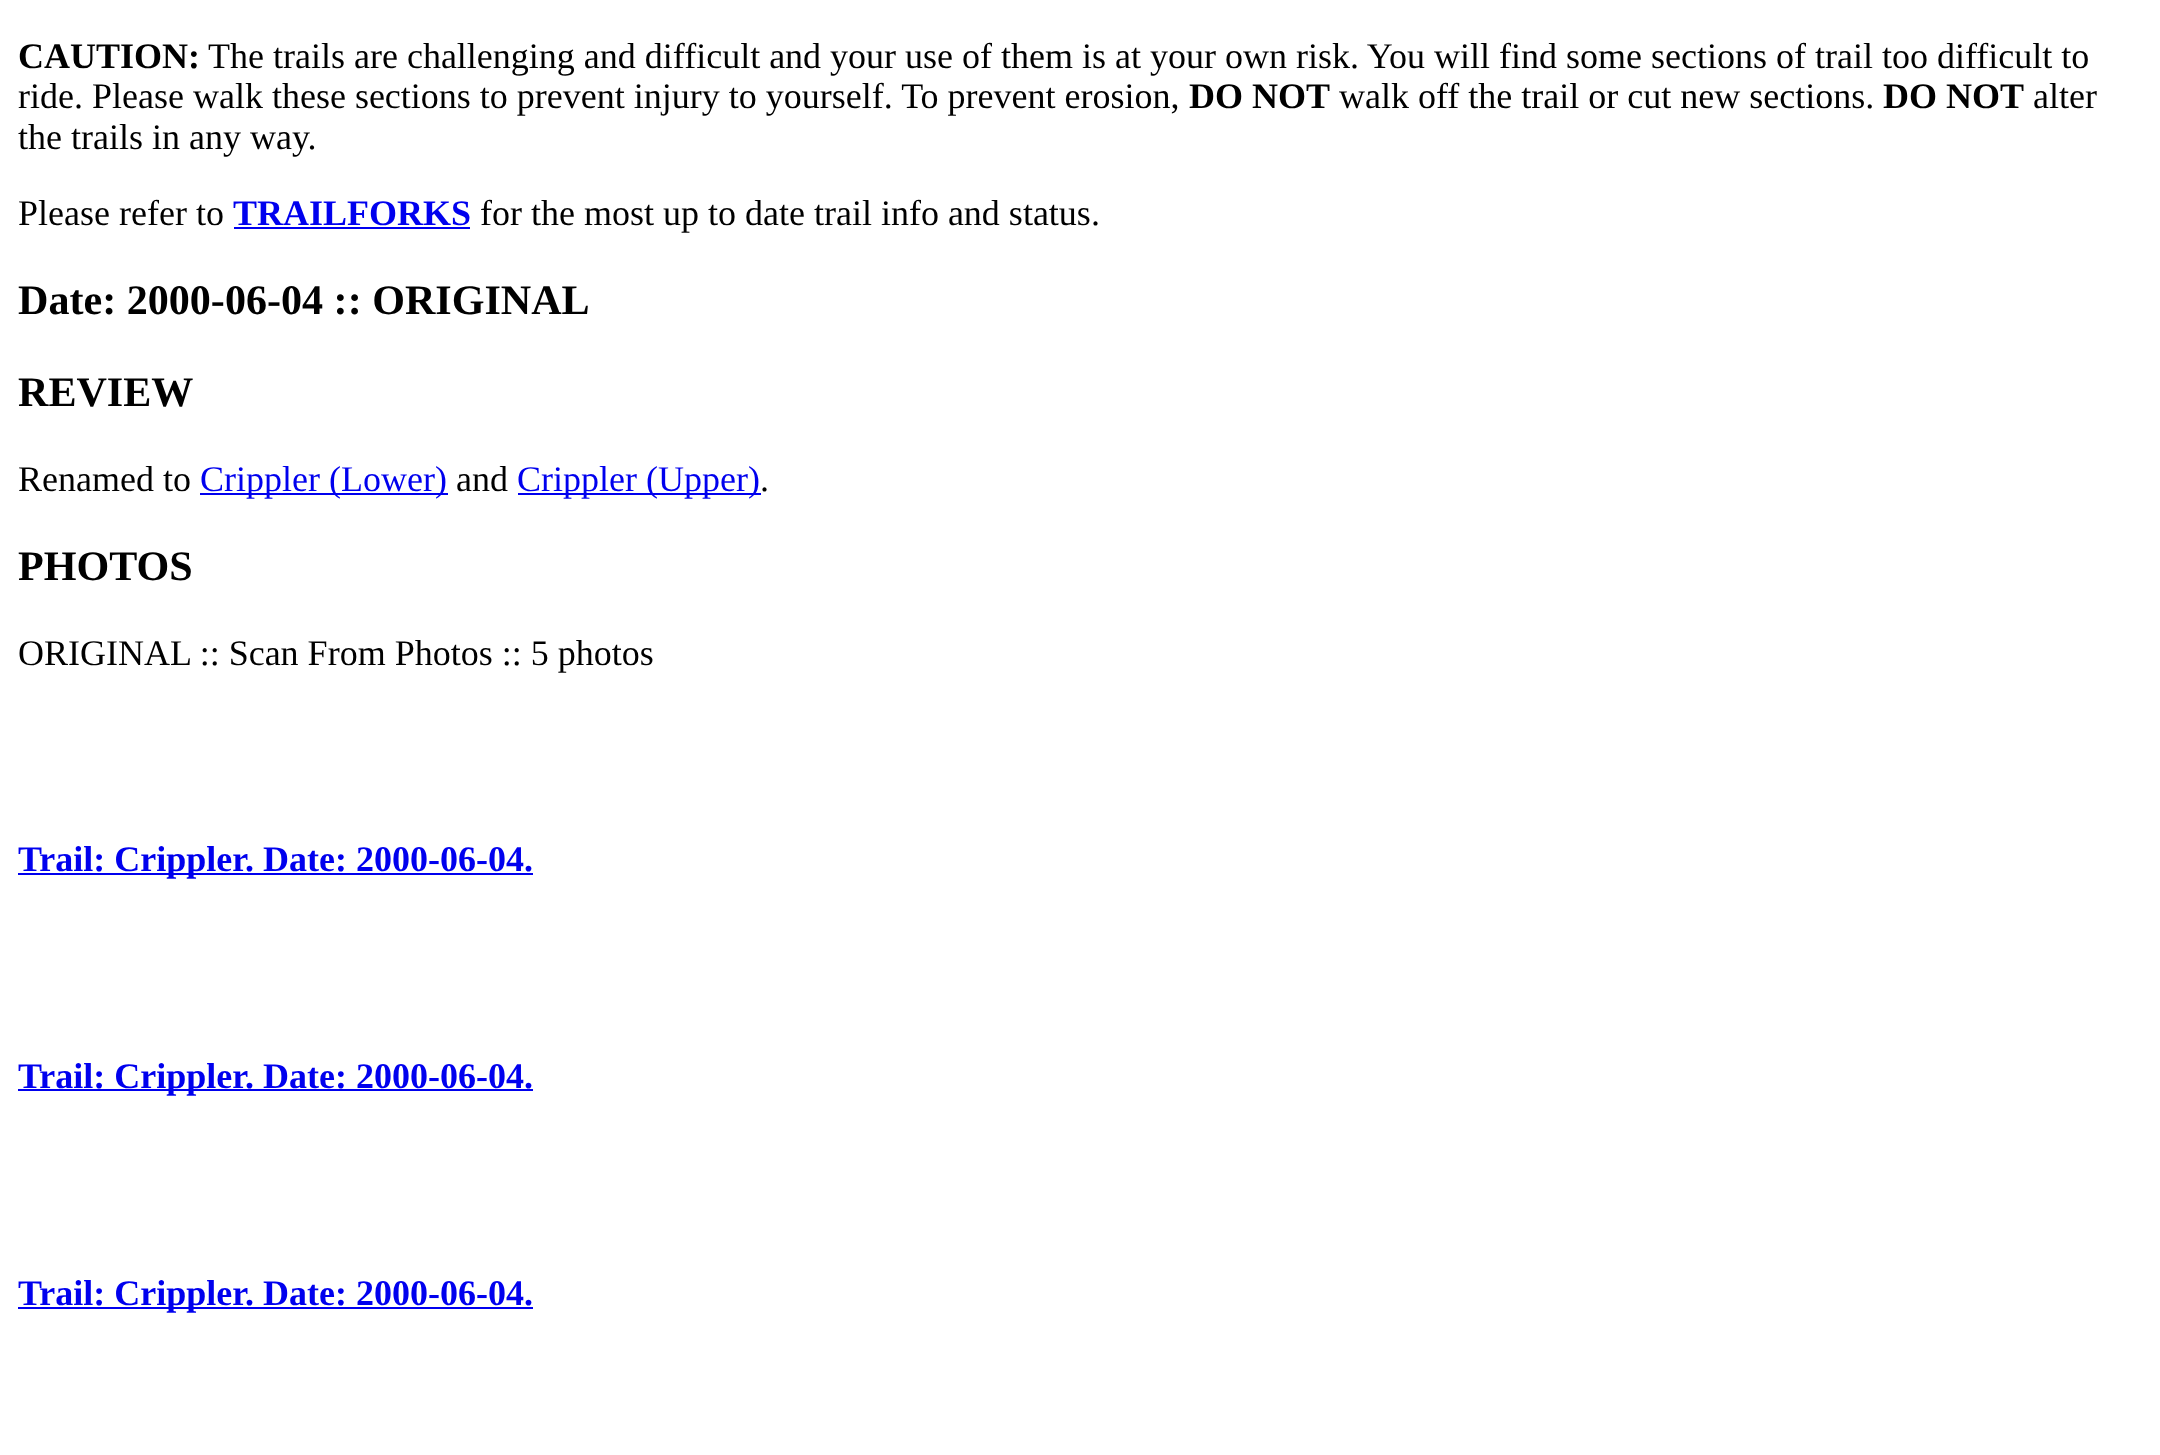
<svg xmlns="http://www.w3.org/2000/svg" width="2160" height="1455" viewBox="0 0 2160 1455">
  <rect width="100%" height="100%" fill="rgb(255,255,255)"/>
  <text x="18" y="68" font-family="Liberation Serif" font-size="36" font-weight="bold" fill="rgb(0,0,0)">CAUTION:</text>
  <g font-family="Liberation Serif" font-size="36" fill="rgb(0,0,0)">
    <text x="208" y="68">The trails are challenging and difficult and your use of them is at your own risk. You will find some sections of trail too difficult to</text>
    <text x="18" y="108">ride. Please walk these sections to prevent injury to yourself. To prevent erosion,</text>
  </g>
  <text x="1189" y="108" font-family="Liberation Serif" font-size="36" font-weight="bold" fill="rgb(0,0,0)">DO NOT</text>
  <text x="1339" y="108" font-family="Liberation Serif" font-size="36" fill="rgb(0,0,0)">walk off the trail or cut new sections.</text>
  <text x="1883" y="108" font-family="Liberation Serif" font-size="36" font-weight="bold" fill="rgb(0,0,0)">DO NOT</text>
  <g font-family="Liberation Serif" font-size="36" fill="rgb(0,0,0)">
    <text x="2033" y="108">alter</text>
    <text x="18" y="149">the trails in any way.</text>
    <text x="18" y="225">Please refer to</text>
  </g>
  <text x="233" y="225" font-family="Liberation Serif" font-size="36" font-weight="bold" fill="rgb(0,0,238)">TRAILFORKS</text>
  <rect x="234" y="227" width="236" height="2" fill="rgb(0,0,238)"/>
  <text x="480" y="225" font-family="Liberation Serif" font-size="36" fill="rgb(0,0,0)">for the most up to date trail info and status.</text>
  <g font-family="Liberation Serif" font-size="42.1" font-weight="bold" fill="rgb(0,0,0)">
    <text x="18" y="314">Date: 2000-06-04 :: ORIGINAL</text>
    <text x="18" y="406">REVIEW</text>
  </g>
  <text x="18" y="491" font-family="Liberation Serif" font-size="36" fill="rgb(0,0,0)">Renamed to</text>
  <rect x="200" y="493" width="248" height="2" fill="rgb(0,0,238)"/>
  <text x="200" y="491" font-family="Liberation Serif" font-size="36" fill="rgb(0,0,238)">Crippler (Lower)</text>
  <text x="456" y="491" font-family="Liberation Serif" font-size="36" fill="rgb(0,0,0)">and</text>
  <rect x="518" y="493" width="243" height="2" fill="rgb(0,0,238)"/>
  <text x="517" y="491" font-family="Liberation Serif" font-size="36" fill="rgb(0,0,238)">Crippler (Upper)</text>
  <text x="760" y="491" font-family="Liberation Serif" font-size="36" fill="rgb(0,0,0)">.</text>
  <text x="18" y="580" font-family="Liberation Serif" font-size="42.1" font-weight="bold" fill="rgb(0,0,0)">PHOTOS</text>
  <text x="18" y="665" font-family="Liberation Serif" font-size="36" fill="rgb(0,0,0)">ORIGINAL :: Scan From Photos :: 5 photos</text>
  <rect x="18" y="873" width="515" height="2" fill="rgb(0,0,238)"/>
  <text x="18" y="871" font-family="Liberation Serif" font-size="36" font-weight="bold" fill="rgb(0,0,238)">Trail: Crippler. Date: 2000-06-04.</text>
  <rect x="18" y="1089" width="515" height="2" fill="rgb(0,0,238)"/>
  <text x="18" y="1088" font-family="Liberation Serif" font-size="36" font-weight="bold" fill="rgb(0,0,238)">Trail: Crippler. Date: 2000-06-04.</text>
  <rect x="18" y="1307" width="515" height="2" fill="rgb(0,0,238)"/>
  <text x="18" y="1305" font-family="Liberation Serif" font-size="36" font-weight="bold" fill="rgb(0,0,238)">Trail: Crippler. Date: 2000-06-04.</text>
</svg>
